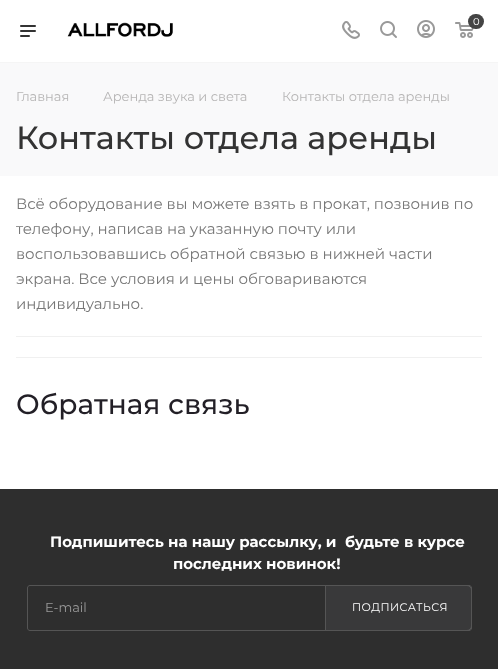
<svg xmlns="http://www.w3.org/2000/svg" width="498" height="669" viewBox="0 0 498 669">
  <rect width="100%" height="100%" fill="rgb(255,255,255)"/>
  <rect x="0" y="62" width="498" height="1" fill="rgb(245,245,245)"/>
  <image x="20" y="25" width="16" height="12" href="pic1.png"/>
  <image x="67" y="22" width="106" height="15" href="pic2.png"/>
  <image x="342" y="21" width="18" height="18" href="pic3.png"/>
  <image x="380" y="21" width="17" height="17" href="pic4.png"/>
  <image x="417" y="20" width="18" height="18" href="pic5.png"/>
  <image x="455" y="22" width="19" height="16" href="pic6.png"/>
  <rect x="468" y="14" width="16" height="15" rx="7.5" fill="rgb(68,68,68)"/>
  <text x="473" y="25" font-family="Montserrat" font-size="10" fill="rgb(255,255,255)">0</text>
  <rect x="0" y="63" width="498" height="113" fill="rgb(249,249,250)"/>
  <g font-family="Montserrat" font-size="13" fill="rgb(182,181,181)">
    <text x="16" y="101">Главная</text>
    <text x="103" y="101">Аренда звука и света</text>
    <text x="282" y="101">Контакты отдела аренды</text>
  </g>
  <text x="16" y="149" font-family="Montserrat" font-size="32" font-weight="500" fill="rgb(51,51,51)">Контакты отдела аренды</text>
  <g font-family="Montserrat" font-size="15" fill="rgb(119,119,119)">
    <text>
      <tspan x="16" y="209">Всё оборудование вы можете взять в прокат, позвонив по</tspan>
      <tspan x="16" y="234">телефону, написав на указанную почту или</tspan>
      <tspan x="16" y="259">воспользовавшись обратной связью в нижней части</tspan>
      <tspan x="16" y="284">экрана. Все условия и цены обговариваются</tspan>
      <tspan x="16" y="309">индивидуально.</tspan>
    </text>
  </g>
  <rect x="16" y="336" width="466" height="1" fill="rgb(240,240,240)"/>
  <rect x="16" y="357" width="466" height="1" fill="rgb(240,240,240)"/>
  <text x="16" y="414" font-family="Montserrat" font-size="28" font-weight="500" fill="rgb(34,31,38)">Обратная связь</text>
  <rect x="0" y="489" width="498" height="180" fill="rgb(46,46,46)"/>
  <g font-family="Montserrat" font-size="15" font-weight="bold" fill="rgb(255,255,255)">
    <text x="50" y="547" xml:space="preserve">Подпишитесь на нашу рассылку, и  будьте в курсе</text>
    <text x="173" y="569">последних новинок!</text>
  </g>
  <path d="M30 585.5H467C469.5 585.5 471.5 587.5 471.5 590V626C471.5 628.5 469.5 630.5 467 630.5H30C28.5 630.5 27.5 629.5 27.5 628V588C27.5 586.5 28.5 585.5 30 585.5Z" fill="none" stroke="rgb(85,85,85)"/>
  <text x="45" y="612" font-family="Montserrat" font-size="13" fill="rgb(153,153,153)">E-mail</text>
  <path d="M325.5 585.5H469C470.5 585.5 471.5 586.5 471.5 588V628C471.5 629.5 470.5 630.5 469 630.5H325.5Z" fill="rgba(104,106,110,0.2)" stroke="rgb(85,85,85)"/>
  <text x="352" y="611" font-family="Montserrat" font-size="11" letter-spacing="0.5" fill="rgb(255,255,255)">ПОДПИСАТЬСЯ</text>
</svg>
